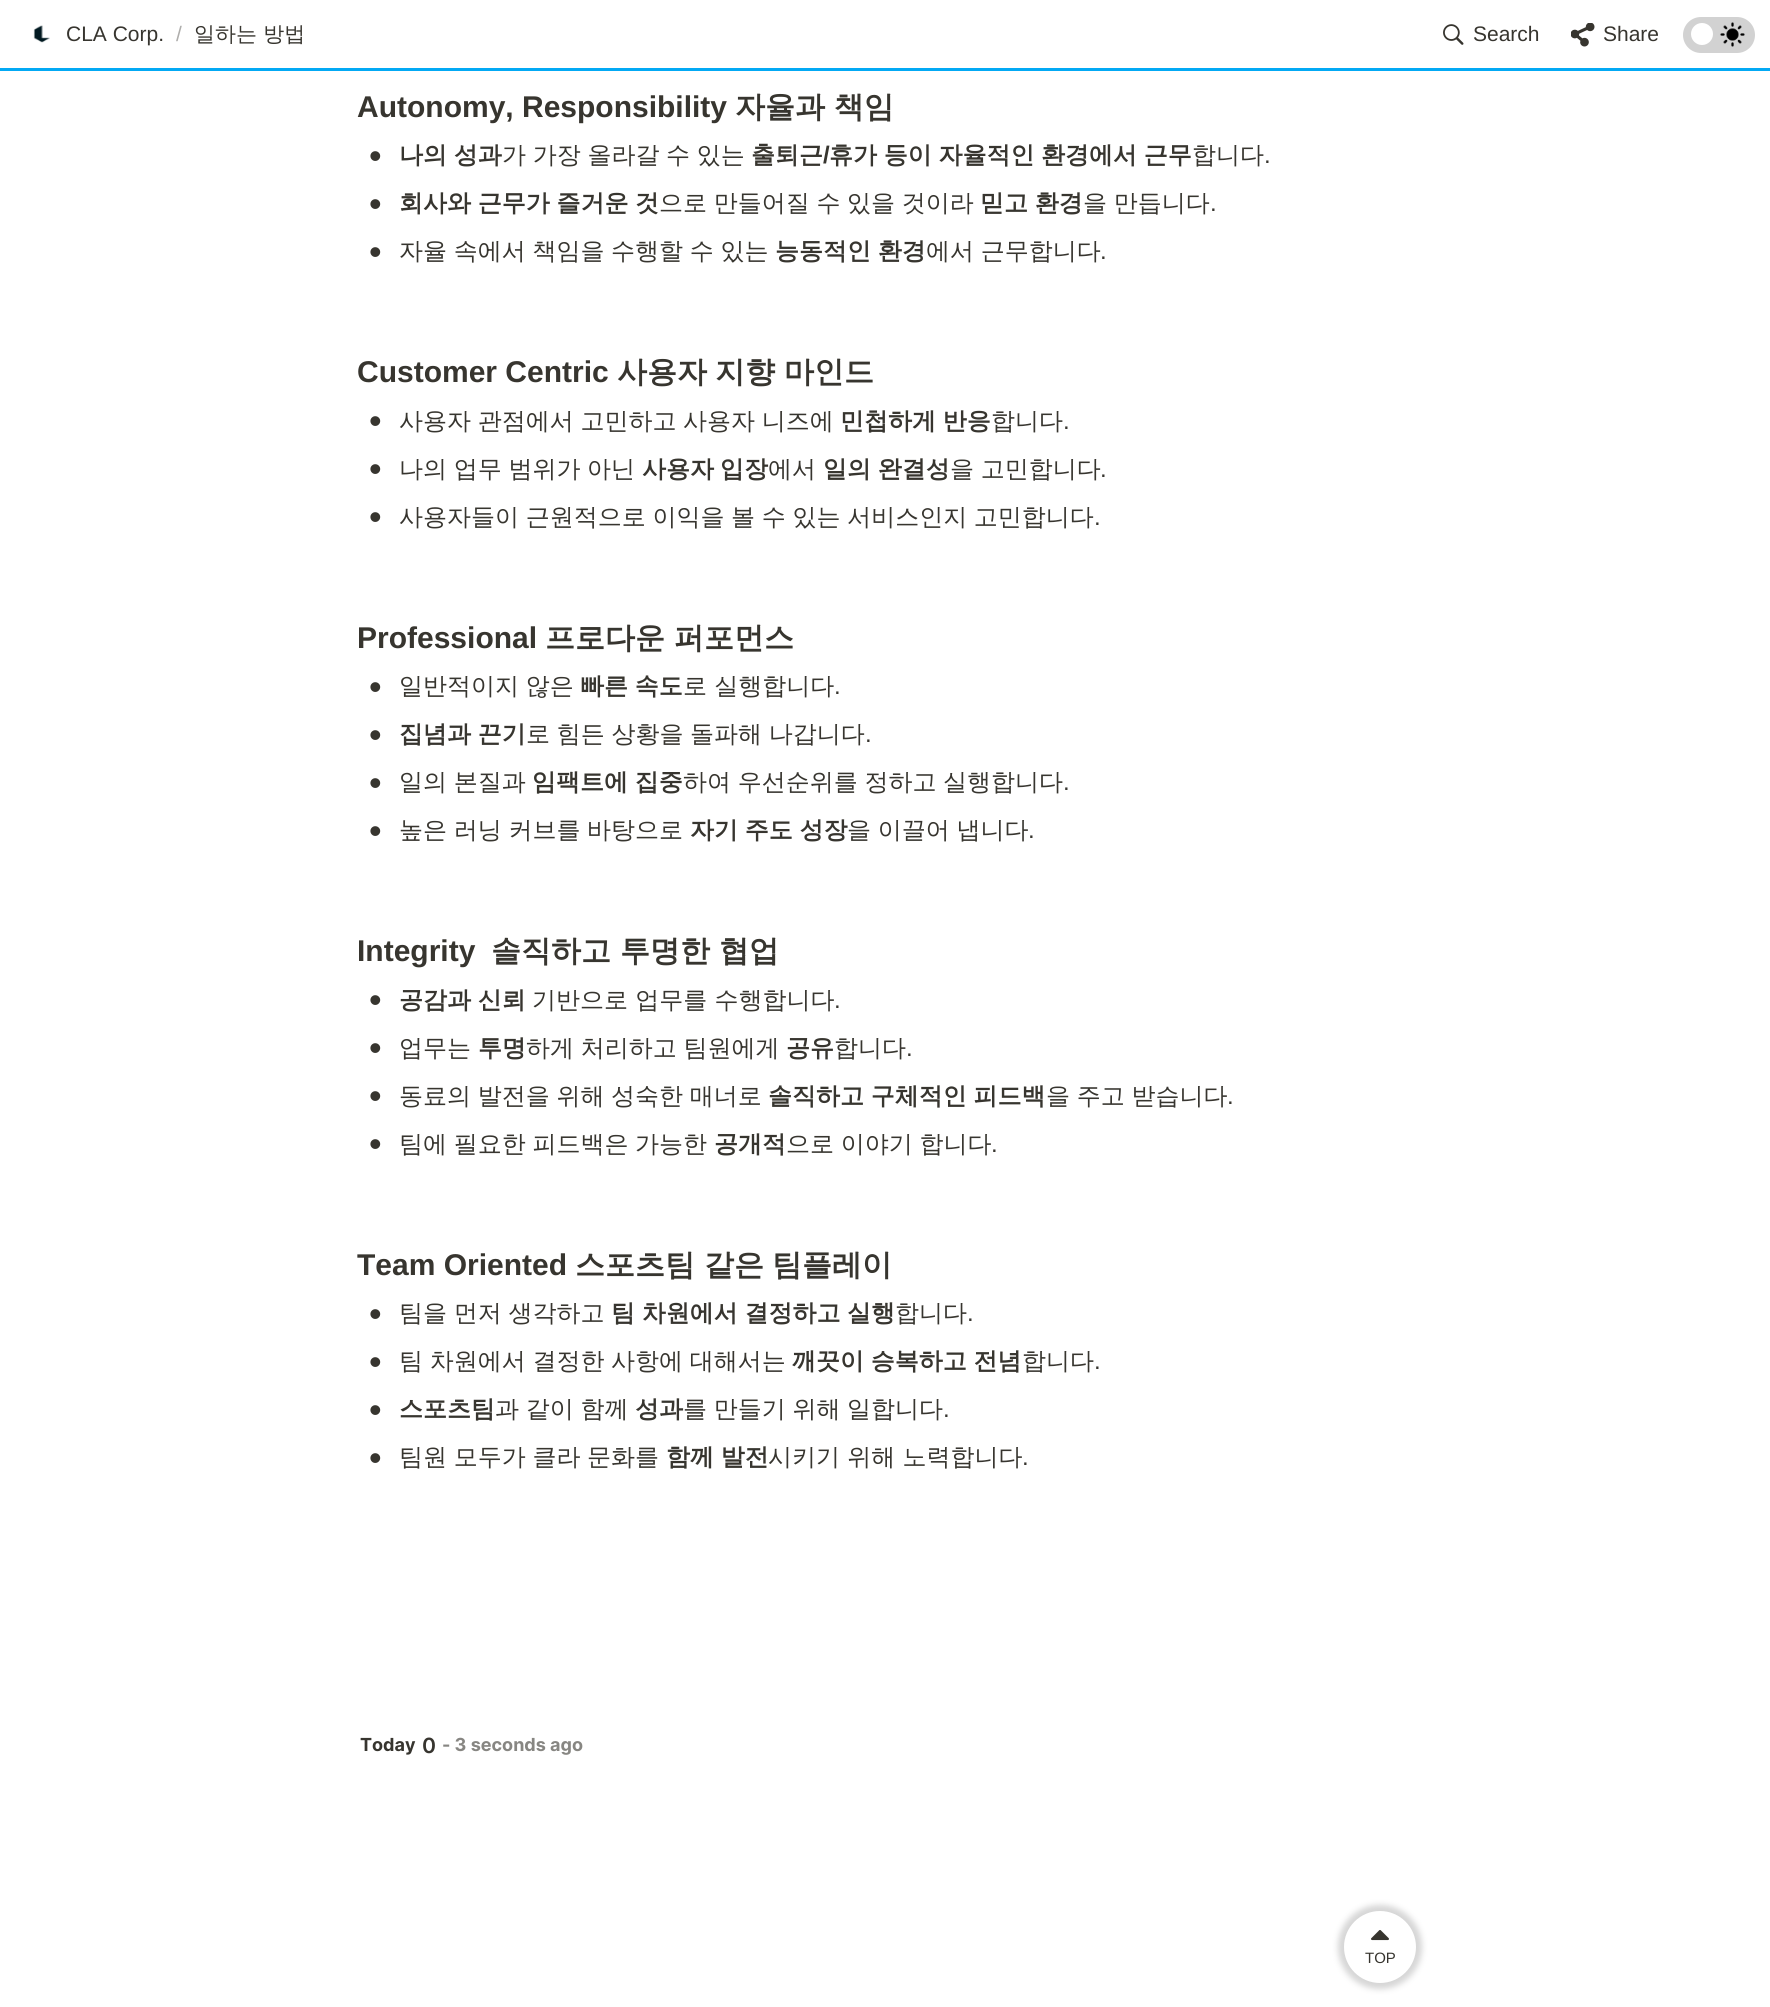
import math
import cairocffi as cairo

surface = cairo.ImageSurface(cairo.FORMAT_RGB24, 1770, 2007)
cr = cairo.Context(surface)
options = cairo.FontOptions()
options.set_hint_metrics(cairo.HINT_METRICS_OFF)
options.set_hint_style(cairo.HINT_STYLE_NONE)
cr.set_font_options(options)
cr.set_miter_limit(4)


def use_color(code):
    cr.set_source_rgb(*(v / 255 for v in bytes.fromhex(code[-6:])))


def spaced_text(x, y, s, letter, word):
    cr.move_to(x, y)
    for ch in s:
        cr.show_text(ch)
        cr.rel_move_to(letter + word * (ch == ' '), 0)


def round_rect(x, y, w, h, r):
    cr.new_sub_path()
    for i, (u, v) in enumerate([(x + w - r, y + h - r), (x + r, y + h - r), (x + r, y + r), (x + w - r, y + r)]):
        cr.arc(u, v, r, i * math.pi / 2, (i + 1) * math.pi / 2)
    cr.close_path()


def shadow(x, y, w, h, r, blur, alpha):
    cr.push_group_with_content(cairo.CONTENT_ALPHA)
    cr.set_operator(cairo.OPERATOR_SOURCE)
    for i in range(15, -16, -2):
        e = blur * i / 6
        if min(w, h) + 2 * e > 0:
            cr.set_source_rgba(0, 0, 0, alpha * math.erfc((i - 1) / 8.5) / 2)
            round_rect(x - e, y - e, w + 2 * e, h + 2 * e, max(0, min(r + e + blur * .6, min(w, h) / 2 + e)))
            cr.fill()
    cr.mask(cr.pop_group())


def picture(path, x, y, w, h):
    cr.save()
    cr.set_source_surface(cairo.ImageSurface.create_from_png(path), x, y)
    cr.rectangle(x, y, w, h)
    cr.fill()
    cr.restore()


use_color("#ffffff")
cr.paint()
picture("img1.png", 33, 25, 17, 18)
cr.select_font_face("Liberation Sans")
cr.set_font_size(21)
use_color("#37352f")
cr.move_to(66, 41)
cr.show_text("CLA Corp.")
use_color("#afaeac")
cr.move_to(176, 41)
cr.show_text("/")
cr.select_font_face("WenQuanYi Zen Hei Medium")
use_color("#37352f")
cr.move_to(194, 41)
cr.show_text("일하는 방법")
picture("img2.png", 1443, 24, 21, 21)
cr.select_font_face("Liberation Sans")
cr.move_to(1473, 41)
cr.show_text("Search")
picture("img3.png", 1571, 23, 24, 24)
cr.move_to(1603, 41)
cr.show_text("Share")
use_color("#d2d2d2")
round_rect(1683, 17, 72, 36, 18)
cr.fill()
picture("img4.png", 1720, 22, 25, 25)
use_color("#ffffff")
cr.arc(1702, 34, 11, 0, 2 * math.pi)
cr.fill()
use_color("#03a9f4")
cr.rectangle(0, 68, 1770, 3)
cr.fill()
cr.select_font_face("Liberation Sans", cairo.FONT_SLANT_NORMAL, cairo.FONT_WEIGHT_BOLD)
cr.set_font_size(30)
use_color("#37352f")
cr.move_to(357, 117)
cr.show_text("Autonomy, Responsibility")
cr.select_font_face("WenQuanYi Zen Hei", cairo.FONT_SLANT_NORMAL, cairo.FONT_WEIGHT_BOLD)
cr.move_to(735, 117)
cr.show_text("자율과")
cr.move_to(834, 117)
cr.show_text("책임")
cr.select_font_face("Liberation Sans")
cr.set_font_size(36)
cr.move_to(369, 168)
cr.show_text("•")
cr.select_font_face("WenQuanYi Zen Hei", cairo.FONT_SLANT_NORMAL, cairo.FONT_WEIGHT_BOLD)
cr.set_font_size(24)
spaced_text(399, 163, "나의 성과", 0, -0.5)
cr.select_font_face("WenQuanYi Zen Hei Medium")
spaced_text(502, 163, "가 가장 올라갈 수 있는", 0, -0.5)
cr.select_font_face("WenQuanYi Zen Hei", cairo.FONT_SLANT_NORMAL, cairo.FONT_WEIGHT_BOLD)
cr.move_to(751, 163)
cr.show_text("출퇴근")
cr.select_font_face("Liberation Sans", cairo.FONT_SLANT_NORMAL, cairo.FONT_WEIGHT_BOLD)
cr.move_to(823, 163)
cr.show_text("/")
cr.select_font_face("WenQuanYi Zen Hei", cairo.FONT_SLANT_NORMAL, cairo.FONT_WEIGHT_BOLD)
spaced_text(829, 163, "휴가 등이 자율적인 환경에서 근무", 0, -0.5)
cr.select_font_face("WenQuanYi Zen Hei Medium")
cr.move_to(1192, 163)
cr.show_text("합니다")
cr.select_font_face("Liberation Sans")
cr.move_to(1264, 163)
cr.show_text(".")
cr.set_font_size(36)
cr.move_to(369, 216)
cr.show_text("•")
cr.select_font_face("WenQuanYi Zen Hei", cairo.FONT_SLANT_NORMAL, cairo.FONT_WEIGHT_BOLD)
cr.set_font_size(24)
spaced_text(399, 211, "회사와 근무가 즐거운 것", 0, -0.5)
cr.select_font_face("WenQuanYi Zen Hei Medium")
spaced_text(659, 211, "으로 만들어질 수 있을 것이라", 0, -0.5)
cr.select_font_face("WenQuanYi Zen Hei", cairo.FONT_SLANT_NORMAL, cairo.FONT_WEIGHT_BOLD)
spaced_text(980, 211, "믿고 환경", 0, -0.5)
cr.select_font_face("WenQuanYi Zen Hei Medium")
spaced_text(1083, 211, "을 만듭니다", 0, -0.5)
cr.select_font_face("Liberation Sans")
cr.move_to(1210, 211)
cr.show_text(".")
cr.set_font_size(36)
cr.move_to(369, 264)
cr.show_text("•")
cr.select_font_face("WenQuanYi Zen Hei Medium")
cr.set_font_size(24)
spaced_text(399, 259, "자율 속에서 책임을 수행할 수 있는", 0, -0.5)
cr.select_font_face("WenQuanYi Zen Hei", cairo.FONT_SLANT_NORMAL, cairo.FONT_WEIGHT_BOLD)
spaced_text(775, 259, "능동적인 환경", 0, -0.5)
cr.select_font_face("WenQuanYi Zen Hei Medium")
spaced_text(926, 259, "에서 근무합니다", 0, -0.5)
cr.select_font_face("Liberation Sans")
cr.move_to(1100, 259)
cr.show_text(".")
cr.select_font_face("Liberation Sans", cairo.FONT_SLANT_NORMAL, cairo.FONT_WEIGHT_BOLD)
cr.set_font_size(30)
cr.move_to(357, 382)
cr.show_text("Customer Centric")
cr.select_font_face("WenQuanYi Zen Hei", cairo.FONT_SLANT_NORMAL, cairo.FONT_WEIGHT_BOLD)
cr.move_to(617, 382)
cr.show_text("사용자")
cr.move_to(715, 382)
cr.show_text("지향")
cr.move_to(784, 382)
cr.show_text("마인드")
cr.select_font_face("Liberation Sans")
cr.set_font_size(36)
cr.move_to(369, 433)
cr.show_text("•")
cr.select_font_face("WenQuanYi Zen Hei Medium")
cr.set_font_size(24)
spaced_text(399, 429, "사용자 관점에서 고민하고 사용자 니즈에", 0, -0.5)
cr.select_font_face("WenQuanYi Zen Hei", cairo.FONT_SLANT_NORMAL, cairo.FONT_WEIGHT_BOLD)
spaced_text(840, 429, "민첩하게 반응", 0, -0.5)
cr.select_font_face("WenQuanYi Zen Hei Medium")
cr.move_to(991, 429)
cr.show_text("합니다")
cr.select_font_face("Liberation Sans")
cr.move_to(1063, 429)
cr.show_text(".")
cr.set_font_size(36)
cr.move_to(369, 481)
cr.show_text("•")
cr.select_font_face("WenQuanYi Zen Hei Medium")
cr.set_font_size(24)
spaced_text(399, 477, "나의 업무 범위가 아닌", 0, -0.5)
cr.select_font_face("WenQuanYi Zen Hei", cairo.FONT_SLANT_NORMAL, cairo.FONT_WEIGHT_BOLD)
cr.move_to(642, 477)
cr.show_text("사용자")
cr.move_to(720, 477)
cr.show_text("입장")
cr.select_font_face("WenQuanYi Zen Hei Medium")
cr.move_to(768, 477)
cr.show_text("에서")
cr.select_font_face("WenQuanYi Zen Hei", cairo.FONT_SLANT_NORMAL, cairo.FONT_WEIGHT_BOLD)
spaced_text(823, 477, "일의 완결성", 0, -0.5)
cr.select_font_face("WenQuanYi Zen Hei Medium")
spaced_text(950, 477, "을 고민합니다", 0, -0.5)
cr.select_font_face("Liberation Sans")
cr.move_to(1100, 477)
cr.show_text(".")
cr.set_font_size(36)
cr.move_to(369, 529)
cr.show_text("•")
cr.select_font_face("WenQuanYi Zen Hei Medium")
cr.set_font_size(24)
spaced_text(399, 525, "사용자들이 근원적으로 이익을 볼 수 있는 서비스인지 고민합니다", 0, -0.5)
cr.select_font_face("Liberation Sans")
cr.move_to(1094, 525)
cr.show_text(".")
cr.select_font_face("Liberation Sans", cairo.FONT_SLANT_NORMAL, cairo.FONT_WEIGHT_BOLD)
cr.set_font_size(30)
cr.move_to(357, 648)
cr.show_text("Professional")
cr.select_font_face("WenQuanYi Zen Hei", cairo.FONT_SLANT_NORMAL, cairo.FONT_WEIGHT_BOLD)
cr.move_to(545, 648)
cr.show_text("프로다운 퍼포먼스")
cr.select_font_face("Liberation Sans")
cr.set_font_size(36)
cr.move_to(369, 699)
cr.show_text("•")
cr.select_font_face("WenQuanYi Zen Hei Medium")
cr.set_font_size(24)
spaced_text(399, 694, "일반적이지 않은", 0, -0.5)
cr.select_font_face("WenQuanYi Zen Hei", cairo.FONT_SLANT_NORMAL, cairo.FONT_WEIGHT_BOLD)
spaced_text(580, 694, "빠른 속도", 0, -0.5)
cr.select_font_face("WenQuanYi Zen Hei Medium")
cr.move_to(683, 694)
cr.show_text("로 실행합니다")
cr.select_font_face("Liberation Sans")
cr.move_to(834, 694)
cr.show_text(".")
cr.set_font_size(36)
cr.move_to(369, 747)
cr.show_text("•")
cr.select_font_face("WenQuanYi Zen Hei", cairo.FONT_SLANT_NORMAL, cairo.FONT_WEIGHT_BOLD)
cr.set_font_size(24)
spaced_text(399, 742, "집념과 끈기", 0, -0.5)
cr.select_font_face("WenQuanYi Zen Hei Medium")
spaced_text(526, 742, "로 힘든 상황을 돌파해 나갑니다", 0, -0.5)
cr.select_font_face("Liberation Sans")
cr.move_to(865, 742)
cr.show_text(".")
cr.set_font_size(36)
cr.move_to(369, 795)
cr.show_text("•")
cr.select_font_face("WenQuanYi Zen Hei Medium")
cr.set_font_size(24)
spaced_text(399, 790, "일의 본질과", 0, -0.5)
cr.select_font_face("WenQuanYi Zen Hei", cairo.FONT_SLANT_NORMAL, cairo.FONT_WEIGHT_BOLD)
spaced_text(532, 790, "임팩트에 집중", 0, -0.5)
cr.select_font_face("WenQuanYi Zen Hei Medium")
spaced_text(683, 790, "하여 우선순위를 정하고 실행합니다", 0, -0.5)
cr.select_font_face("Liberation Sans")
cr.move_to(1063, 790)
cr.show_text(".")
cr.set_font_size(36)
cr.move_to(369, 843)
cr.show_text("•")
cr.select_font_face("WenQuanYi Zen Hei Medium")
cr.set_font_size(24)
spaced_text(399, 838, "높은 러닝 커브를 바탕으로", 0, -0.5)
cr.select_font_face("WenQuanYi Zen Hei", cairo.FONT_SLANT_NORMAL, cairo.FONT_WEIGHT_BOLD)
spaced_text(690, 838, "자기 주도 성장", 0, -0.5)
cr.select_font_face("WenQuanYi Zen Hei Medium")
spaced_text(847, 838, "을 이끌어 냅니다", 0, -0.5)
cr.select_font_face("Liberation Sans")
cr.move_to(1028, 838)
cr.show_text(".")
cr.select_font_face("Liberation Sans", cairo.FONT_SLANT_NORMAL, cairo.FONT_WEIGHT_BOLD)
cr.set_font_size(30)
cr.move_to(357, 961)
cr.show_text("Integrity")
cr.select_font_face("WenQuanYi Zen Hei", cairo.FONT_SLANT_NORMAL, cairo.FONT_WEIGHT_BOLD)
cr.move_to(491, 961)
cr.show_text("솔직하고 투명한 협업")
cr.select_font_face("Liberation Sans")
cr.set_font_size(36)
cr.move_to(369, 1012)
cr.show_text("•")
cr.select_font_face("WenQuanYi Zen Hei", cairo.FONT_SLANT_NORMAL, cairo.FONT_WEIGHT_BOLD)
cr.set_font_size(24)
spaced_text(399, 1008, "공감과 신뢰", 0, -0.5)
cr.select_font_face("WenQuanYi Zen Hei Medium")
cr.move_to(532, 1008)
cr.show_text("기반으로 업무를 수행합니다")
cr.select_font_face("Liberation Sans")
cr.move_to(834, 1008)
cr.show_text(".")
cr.set_font_size(36)
cr.move_to(369, 1060)
cr.show_text("•")
cr.select_font_face("WenQuanYi Zen Hei Medium")
cr.set_font_size(24)
cr.move_to(399, 1056)
cr.show_text("업무는")
cr.select_font_face("WenQuanYi Zen Hei", cairo.FONT_SLANT_NORMAL, cairo.FONT_WEIGHT_BOLD)
cr.move_to(478, 1056)
cr.show_text("투명")
cr.select_font_face("WenQuanYi Zen Hei Medium")
spaced_text(526, 1056, "하게 처리하고 팀원에게", 0, -0.5)
cr.select_font_face("WenQuanYi Zen Hei", cairo.FONT_SLANT_NORMAL, cairo.FONT_WEIGHT_BOLD)
cr.move_to(786, 1056)
cr.show_text("공유")
cr.select_font_face("WenQuanYi Zen Hei Medium")
cr.move_to(834, 1056)
cr.show_text("합니다")
cr.select_font_face("Liberation Sans")
cr.move_to(906, 1056)
cr.show_text(".")
cr.set_font_size(36)
cr.move_to(369, 1108)
cr.show_text("•")
cr.select_font_face("WenQuanYi Zen Hei Medium")
cr.set_font_size(24)
spaced_text(399, 1104, "동료의 발전을 위해 성숙한 매너로", 0, -0.5)
cr.select_font_face("WenQuanYi Zen Hei", cairo.FONT_SLANT_NORMAL, cairo.FONT_WEIGHT_BOLD)
spaced_text(768, 1104, "솔직하고 구체적인 피드백", 0, -0.5)
cr.select_font_face("WenQuanYi Zen Hei Medium")
spaced_text(1046, 1104, "을 주고 받습니다", 0, -0.5)
cr.select_font_face("Liberation Sans")
cr.move_to(1227, 1104)
cr.show_text(".")
cr.set_font_size(36)
cr.move_to(369, 1156)
cr.show_text("•")
cr.select_font_face("WenQuanYi Zen Hei Medium")
cr.set_font_size(24)
spaced_text(399, 1152, "팀에 필요한 피드백은 가능한", 0, -0.5)
cr.select_font_face("WenQuanYi Zen Hei", cairo.FONT_SLANT_NORMAL, cairo.FONT_WEIGHT_BOLD)
cr.move_to(714, 1152)
cr.show_text("공개적")
cr.select_font_face("WenQuanYi Zen Hei Medium")
spaced_text(786, 1152, "으로 이야기 합니다", 0, -0.5)
cr.select_font_face("Liberation Sans")
cr.move_to(991, 1152)
cr.show_text(".")
cr.select_font_face("Liberation Sans", cairo.FONT_SLANT_NORMAL, cairo.FONT_WEIGHT_BOLD)
cr.set_font_size(30)
cr.move_to(357, 1275)
cr.show_text("Team Oriented")
cr.select_font_face("WenQuanYi Zen Hei", cairo.FONT_SLANT_NORMAL, cairo.FONT_WEIGHT_BOLD)
cr.move_to(575, 1275)
cr.show_text("스포츠팀")
cr.move_to(704, 1275)
cr.show_text("같은")
cr.move_to(772, 1275)
cr.show_text("팀플레이")
cr.select_font_face("Liberation Sans")
cr.set_font_size(36)
cr.move_to(369, 1326)
cr.show_text("•")
cr.select_font_face("WenQuanYi Zen Hei Medium")
cr.set_font_size(24)
spaced_text(399, 1321, "팀을 먼저 생각하고", 0, -0.5)
cr.select_font_face("WenQuanYi Zen Hei", cairo.FONT_SLANT_NORMAL, cairo.FONT_WEIGHT_BOLD)
spaced_text(611, 1321, "팀 차원에서 결정하고 실행", 0, -0.5)
cr.select_font_face("WenQuanYi Zen Hei Medium")
cr.move_to(895, 1321)
cr.show_text("합니다")
cr.select_font_face("Liberation Sans")
cr.move_to(967, 1321)
cr.show_text(".")
cr.set_font_size(36)
cr.move_to(369, 1374)
cr.show_text("•")
cr.select_font_face("WenQuanYi Zen Hei Medium")
cr.set_font_size(24)
spaced_text(399, 1369, "팀 차원에서 결정한 사항에 대해서는", 0, -0.5)
cr.select_font_face("WenQuanYi Zen Hei", cairo.FONT_SLANT_NORMAL, cairo.FONT_WEIGHT_BOLD)
spaced_text(792, 1369, "깨끗이 승복하고 전념", 0, -0.5)
cr.select_font_face("WenQuanYi Zen Hei Medium")
cr.move_to(1022, 1369)
cr.show_text("합니다")
cr.select_font_face("Liberation Sans")
cr.move_to(1094, 1369)
cr.show_text(".")
cr.set_font_size(36)
cr.move_to(369, 1422)
cr.show_text("•")
cr.select_font_face("WenQuanYi Zen Hei", cairo.FONT_SLANT_NORMAL, cairo.FONT_WEIGHT_BOLD)
cr.set_font_size(24)
cr.move_to(399, 1417)
cr.show_text("스포츠팀")
cr.select_font_face("WenQuanYi Zen Hei Medium")
spaced_text(495, 1417, "과 같이 함께", 0, -0.5)
cr.select_font_face("WenQuanYi Zen Hei", cairo.FONT_SLANT_NORMAL, cairo.FONT_WEIGHT_BOLD)
cr.move_to(635, 1417)
cr.show_text("성과")
cr.select_font_face("WenQuanYi Zen Hei Medium")
spaced_text(683, 1417, "를 만들기 위해 일합니다", 0, -0.5)
cr.select_font_face("Liberation Sans")
cr.move_to(943, 1417)
cr.show_text(".")
cr.set_font_size(36)
cr.move_to(369, 1470)
cr.show_text("•")
cr.select_font_face("WenQuanYi Zen Hei Medium")
cr.set_font_size(24)
spaced_text(399, 1465, "팀원 모두가 클라 문화를", 0, -0.5)
cr.select_font_face("WenQuanYi Zen Hei", cairo.FONT_SLANT_NORMAL, cairo.FONT_WEIGHT_BOLD)
spaced_text(666, 1465, "함께 발전", 0, -0.5)
cr.select_font_face("WenQuanYi Zen Hei Medium")
cr.move_to(768, 1465)
cr.show_text("시키기 위해 노력합니다")
cr.select_font_face("Liberation Sans")
cr.move_to(1022, 1465)
cr.show_text(".")
cr.select_font_face("Inter", cairo.FONT_SLANT_NORMAL, cairo.FONT_WEIGHT_BOLD)
cr.set_font_size(18)
cr.move_to(360, 1751)
cr.show_text("Today")
cr.select_font_face("Inter SemiBold")
cr.set_font_size(21)
cr.move_to(422, 1753)
cr.show_text("0")
cr.select_font_face("Inter", cairo.FONT_SLANT_NORMAL, cairo.FONT_WEIGHT_BOLD)
cr.set_font_size(18)
use_color("#878682")
cr.move_to(442, 1751)
cr.show_text("- 3 seconds ago")
use_color("#d6d6d6")
shadow(1338, 1905, 84, 84, 42, 3, 1)
use_color("#ffffff")
cr.arc(1380, 1947, 36, 0, 2 * math.pi)
cr.fill()
picture("img5.png", 1371, 1930, 18, 11)
cr.select_font_face("Liberation Sans")
cr.set_font_size(15)
use_color("#37352f")
cr.move_to(1365, 1963)
cr.show_text("TOP")
surface.write_to_png("result.png")
